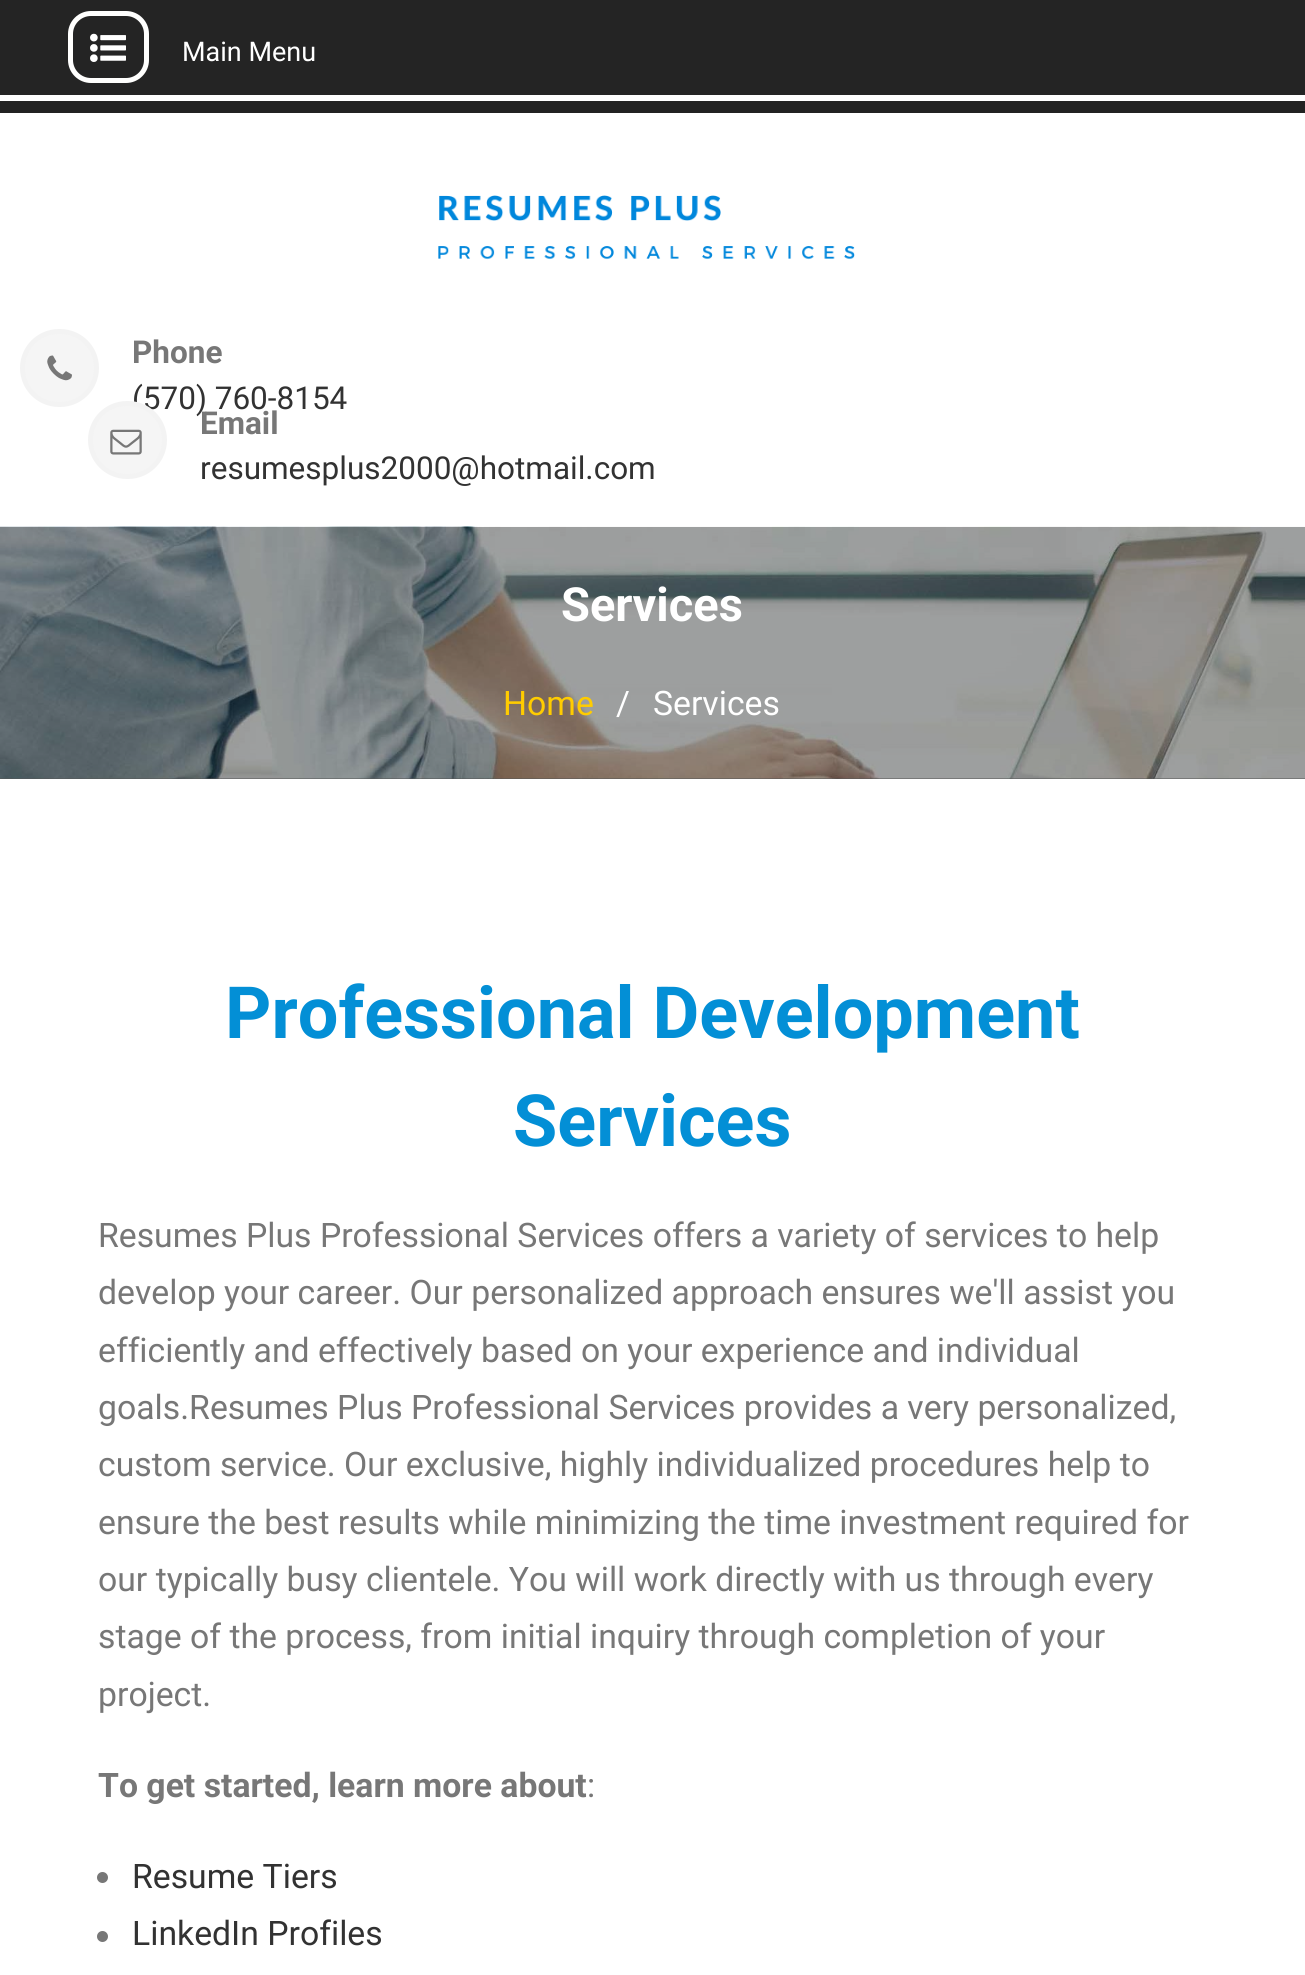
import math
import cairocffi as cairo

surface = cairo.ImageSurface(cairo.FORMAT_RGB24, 1305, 1975)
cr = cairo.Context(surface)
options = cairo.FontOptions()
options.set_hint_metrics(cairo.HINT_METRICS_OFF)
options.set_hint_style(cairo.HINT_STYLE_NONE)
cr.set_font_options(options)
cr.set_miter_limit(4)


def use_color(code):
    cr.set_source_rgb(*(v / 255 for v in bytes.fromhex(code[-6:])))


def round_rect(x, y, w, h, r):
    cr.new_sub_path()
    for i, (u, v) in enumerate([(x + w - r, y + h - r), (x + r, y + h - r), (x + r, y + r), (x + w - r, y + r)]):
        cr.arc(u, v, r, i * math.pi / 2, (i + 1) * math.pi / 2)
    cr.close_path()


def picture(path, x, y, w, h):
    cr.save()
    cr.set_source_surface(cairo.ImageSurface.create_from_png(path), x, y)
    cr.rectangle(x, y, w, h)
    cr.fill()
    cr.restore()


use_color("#ffffff")
cr.paint()
use_color("#242424")
cr.rectangle(0, 0, 1305, 95)
cr.fill()
round_rect(70.5, 13.5, 76, 67, 20.5)
use_color("#fffffe")
cr.set_line_width(5)
cr.stroke()
picture("img1.png", 90, 33, 36, 29)
cr.select_font_face("Roboto")
cr.set_font_size(27)
use_color("#ffffff")
cr.move_to(182, 61)
cr.show_text("Main Menu")
use_color("#222222")
cr.rectangle(0, 101, 1305, 12)
cr.fill()
picture("img2.png", 438, 195, 417, 65)
use_color("#f5f5f5")
round_rect(22.5, 331.5, 74, 73, 36.5)
cr.fill_preserve()
use_color("#f3f3f3")
cr.stroke()
picture("img3.png", 47, 355, 25, 26)
cr.select_font_face("Roboto", cairo.FONT_SLANT_NORMAL, cairo.FONT_WEIGHT_BOLD)
cr.set_font_size(31.5)
use_color("#777777")
cr.move_to(132, 363)
cr.show_text("Phone")
cr.select_font_face("Roboto")
use_color("#323232")
cr.move_to(132, 409)
cr.show_text("(570) 760-8154")
use_color("#f5f5f5")
round_rect(90.5, 403.5, 74, 73, 36.5)
cr.fill_preserve()
use_color("#f3f3f3")
cr.stroke()
picture("img4.png", 110, 429, 32, 26)
cr.select_font_face("Roboto", cairo.FONT_SLANT_NORMAL, cairo.FONT_WEIGHT_BOLD)
use_color("#777777")
cr.move_to(200, 434)
cr.show_text("Email")
cr.select_font_face("Roboto")
use_color("#323232")
cr.move_to(200, 479)
cr.show_text("resumesplus2000@hotmail.com")
use_color("#555656")
cr.rectangle(0, 778, 1305, 1)
cr.fill()
picture("img5.png", 0, 526, 1305, 253)
cr.select_font_face("Roboto", cairo.FONT_SLANT_NORMAL, cairo.FONT_WEIGHT_BOLD)
cr.set_font_size(47)
use_color("#ffffff")
cr.move_to(561, 621)
cr.show_text("Services")
cr.select_font_face("Roboto")
cr.set_font_size(33.75)
use_color("#ffcc00")
cr.move_to(503, 715)
cr.show_text("Home")
use_color("#ffffff")
cr.move_to(616, 715)
cr.show_text("/")
cr.move_to(653, 715)
cr.show_text("Services")
cr.select_font_face("Roboto", cairo.FONT_SLANT_NORMAL, cairo.FONT_WEIGHT_BOLD)
cr.set_font_size(72)
use_color("#038fd6")
cr.move_to(225, 1038)
cr.show_text("Professional Development")
cr.move_to(513, 1146)
cr.show_text("Services")
cr.select_font_face("Roboto")
cr.set_font_size(33.75)
use_color("#777777")
cr.move_to(98, 1247)
cr.show_text("Resumes Plus Professional Services offers a variety of services to help")
cr.move_to(98, 1304)
cr.show_text("develop your career. Our personalized approach ensures we'll assist you")
cr.move_to(98, 1362)
cr.show_text("efficiently and effectively based on your experience and individual")
cr.move_to(98, 1419)
cr.show_text("goals.Resumes Plus Professional Services provides a very personalized,")
cr.move_to(98, 1476)
cr.show_text("custom service. Our exclusive, highly individualized procedures help to")
cr.move_to(98, 1534)
cr.show_text("ensure the best results while minimizing the time investment required for")
cr.move_to(98, 1591)
cr.show_text("our typically busy clientele. You will work directly with us through every")
cr.move_to(98, 1648)
cr.show_text("stage of the process, from initial inquiry through completion of your")
cr.move_to(98, 1706)
cr.show_text("project.")
cr.select_font_face("Roboto", cairo.FONT_SLANT_NORMAL, cairo.FONT_WEIGHT_BOLD)
cr.move_to(98, 1797)
cr.show_text("To get started, learn more about")
cr.select_font_face("Roboto")
cr.move_to(587, 1797)
cr.show_text(":")
cr.new_path()
cr.arc(102.5, 1877.5, 5.5, 0, 2 * math.pi)
cr.fill()
use_color("#323232")
cr.move_to(132, 1888)
cr.show_text("Resume Tiers")
use_color("#777777")
cr.new_path()
cr.arc(102.5, 1936.5, 5.5, 0, 2 * math.pi)
cr.fill()
use_color("#323232")
cr.move_to(132, 1945)
cr.show_text("LinkedIn Profiles")
surface.write_to_png("result.png")
